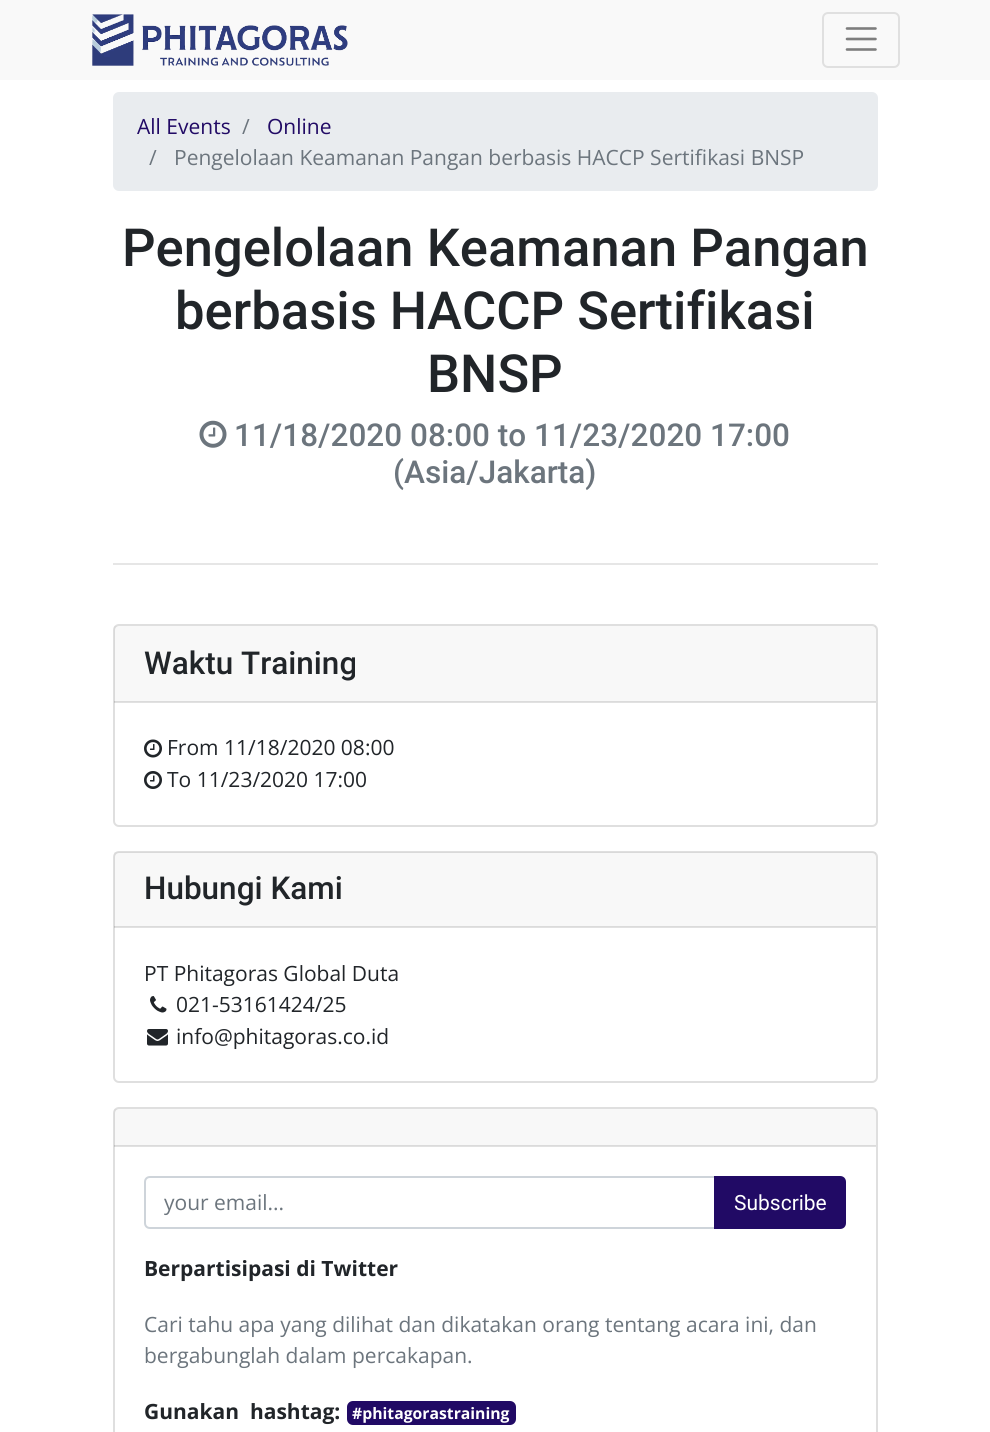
import math
import cairocffi as cairo

surface = cairo.ImageSurface(cairo.FORMAT_RGB24, 990, 1432)
cr = cairo.Context(surface)
options = cairo.FontOptions()
options.set_hint_metrics(cairo.HINT_METRICS_OFF)
options.set_hint_style(cairo.HINT_STYLE_NONE)
cr.set_font_options(options)
cr.set_miter_limit(4)


def use_color(code):
    cr.set_source_rgb(*(v / 255 for v in bytes.fromhex(code[-6:])))


def round_rect(x, y, w, h, r):
    cr.new_sub_path()
    for i, (u, v) in enumerate([(x + w - r, y + h - r), (x + r, y + h - r), (x + r, y + r), (x + w - r, y + r)]):
        cr.arc(u, v, r, i * math.pi / 2, (i + 1) * math.pi / 2)
    cr.close_path()


def picture(path, x, y, w, h):
    cr.save()
    cr.set_source_surface(cairo.ImageSurface.create_from_png(path), x, y)
    cr.rectangle(x, y, w, h)
    cr.fill()
    cr.restore()


use_color("#ffffff")
cr.paint()
use_color("#f9f9f9")
cr.rectangle(0, 0, 990, 80)
cr.fill()
picture("img1.png", 92, 14, 256, 52)
round_rect(823, 13, 76, 54, 5)
use_color("#e0e0e0")
cr.stroke()
cr.new_path()
cr.move_to(847, 28.5)
cr.line_to(875.5, 28.5)
cr.move_to(847, 39)
cr.line_to(875.5, 39)
cr.move_to(847, 49.5)
cr.line_to(875.5, 49.5)
use_color("#7d7d7d")
cr.set_line_width(2.6)
cr.set_line_cap(cairo.LINE_CAP_ROUND)
cr.stroke()
use_color("#e9ecef")
round_rect(113, 92, 765, 99, 6)
cr.fill()
cr.select_font_face("Open Sans")
cr.set_font_size(21)
use_color("#210a65")
cr.move_to(137, 134)
cr.show_text("All Events")
use_color("#6c757d")
cr.move_to(242, 134)
cr.show_text("/")
use_color("#210a65")
cr.move_to(267, 134)
cr.show_text("Online")
use_color("#6c757d")
cr.move_to(149, 165)
cr.show_text("/")
cr.move_to(174, 165)
cr.show_text("Pengelolaan Keamanan Pangan berbasis HACCP Sertifikasi BNSP")
cr.select_font_face("Roboto Medium")
cr.set_font_size(52.5)
use_color("#212529")
cr.move_to(122, 266)
cr.show_text("Pengelolaan Keamanan Pangan")
cr.move_to(175, 329)
cr.show_text("berbasis HACCP Sertifikasi")
cr.move_to(427, 392)
cr.show_text("BNSP")
picture("img2.png", 199, 420, 28, 28)
cr.set_font_size(31.5)
use_color("#6c757d")
cr.move_to(234, 446)
cr.show_text("11/18/2020 08:00 to 11/23/2020 17:00")
cr.move_to(393, 483)
cr.show_text("(Asia/Jakarta)")
use_color("#e6e6e6")
cr.rectangle(113, 563, 765, 2)
cr.fill()
round_rect(114, 625, 763, 201, 5)
use_color("#dfdfdf")
cr.set_line_width(2)
cr.set_line_cap(cairo.LINE_CAP_BUTT)
cr.stroke()
cr.set_source_rgba(0, 0, 0, 0.03)
cr.rectangle(114, 626, 762, 76)
cr.fill()
cr.set_source_rgba(0, 0, 0, 0.12)
cr.rectangle(114, 701, 762, 2)
cr.fill()
use_color("#212529")
cr.move_to(144, 674)
cr.show_text("Waktu Training")
picture("img3.png", 144, 739, 18, 19)
cr.select_font_face("Open Sans")
cr.set_font_size(21)
cr.move_to(167, 755)
cr.show_text("From 11/18/2020 08:00")
picture("img4.png", 144, 771, 18, 18)
cr.move_to(167, 787)
cr.show_text("To 11/23/2020 17:00")
round_rect(114, 852, 763, 230, 5)
use_color("#dfdfdf")
cr.stroke()
cr.set_source_rgba(0, 0, 0, 0.03)
cr.rectangle(114, 852, 762, 75)
cr.fill()
cr.set_source_rgba(0, 0, 0, 0.12)
cr.rectangle(114, 926, 762, 2)
cr.fill()
cr.select_font_face("Roboto Medium")
cr.set_font_size(31.5)
use_color("#212529")
cr.move_to(144, 899)
cr.show_text("Hubungi Kami")
cr.select_font_face("Open Sans")
cr.set_font_size(21)
cr.move_to(144, 981)
cr.show_text("PT Phitagoras Global Duta")
picture("img5.png", 150, 996, 17, 17)
cr.move_to(176, 1012)
cr.show_text("021-53161424/25")
picture("img6.png", 147, 1029, 21, 17)
cr.move_to(176, 1044)
cr.show_text("info@phitagoras.co.id")
round_rect(114, 1108, 763, 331, 5)
use_color("#dfdfdf")
cr.stroke()
cr.set_source_rgba(0, 0, 0, 0.03)
cr.rectangle(114, 1109, 762, 37)
cr.fill()
cr.set_source_rgba(0, 0, 0, 0.12)
cr.rectangle(114, 1145, 762, 2)
cr.fill()
cr.new_path()
cr.move_to(150, 1177)
cr.line_to(716, 1177)
cr.line_to(716, 1228)
cr.line_to(150, 1228)
cr.curve_to(147, 1228, 145, 1226, 145, 1223)
cr.line_to(145, 1182)
cr.curve_to(145, 1179, 147, 1177, 150, 1177)
cr.close_path()
use_color("#ced4da")
cr.stroke()
cr.save()
cr.rectangle(164, 1188, 534, 29)
cr.clip()
use_color("#6c757d")
cr.move_to(164, 1210)
cr.show_text("your email...")
cr.restore()
use_color("#210a65")
cr.new_path()
cr.move_to(715, 1177)
cr.line_to(840, 1177)
cr.curve_to(843, 1177, 845, 1179, 845, 1182)
cr.line_to(845, 1223)
cr.curve_to(845, 1226, 843, 1228, 840, 1228)
cr.line_to(715, 1228)
cr.close_path()
cr.fill_preserve()
cr.stroke()
cr.select_font_face("Roboto")
use_color("#ffffff")
cr.move_to(734, 1210)
cr.show_text("Subscribe")
cr.select_font_face("Open Sans", cairo.FONT_SLANT_NORMAL, cairo.FONT_WEIGHT_BOLD)
use_color("#212529")
cr.move_to(144, 1276)
cr.show_text("Berpartisipasi di Twitter")
cr.select_font_face("Open Sans")
use_color("#6c757d")
cr.move_to(144, 1332)
cr.show_text("Cari tahu apa yang dilihat dan dikatakan orang tentang acara ini, dan")
cr.move_to(144, 1363)
cr.show_text("bergabunglah dalam percakapan.")
cr.select_font_face("Open Sans", cairo.FONT_SLANT_NORMAL, cairo.FONT_WEIGHT_BOLD)
use_color("#212529")
cr.move_to(144, 1419)
cr.show_text("Gunakan  hashtag:")
use_color("#210a65")
round_rect(347, 1401, 169, 24, 6)
cr.fill()
cr.set_font_size(15.75)
use_color("#ffffff")
cr.move_to(352, 1419)
cr.show_text("#phitagorastraining")
surface.write_to_png("result.png")
